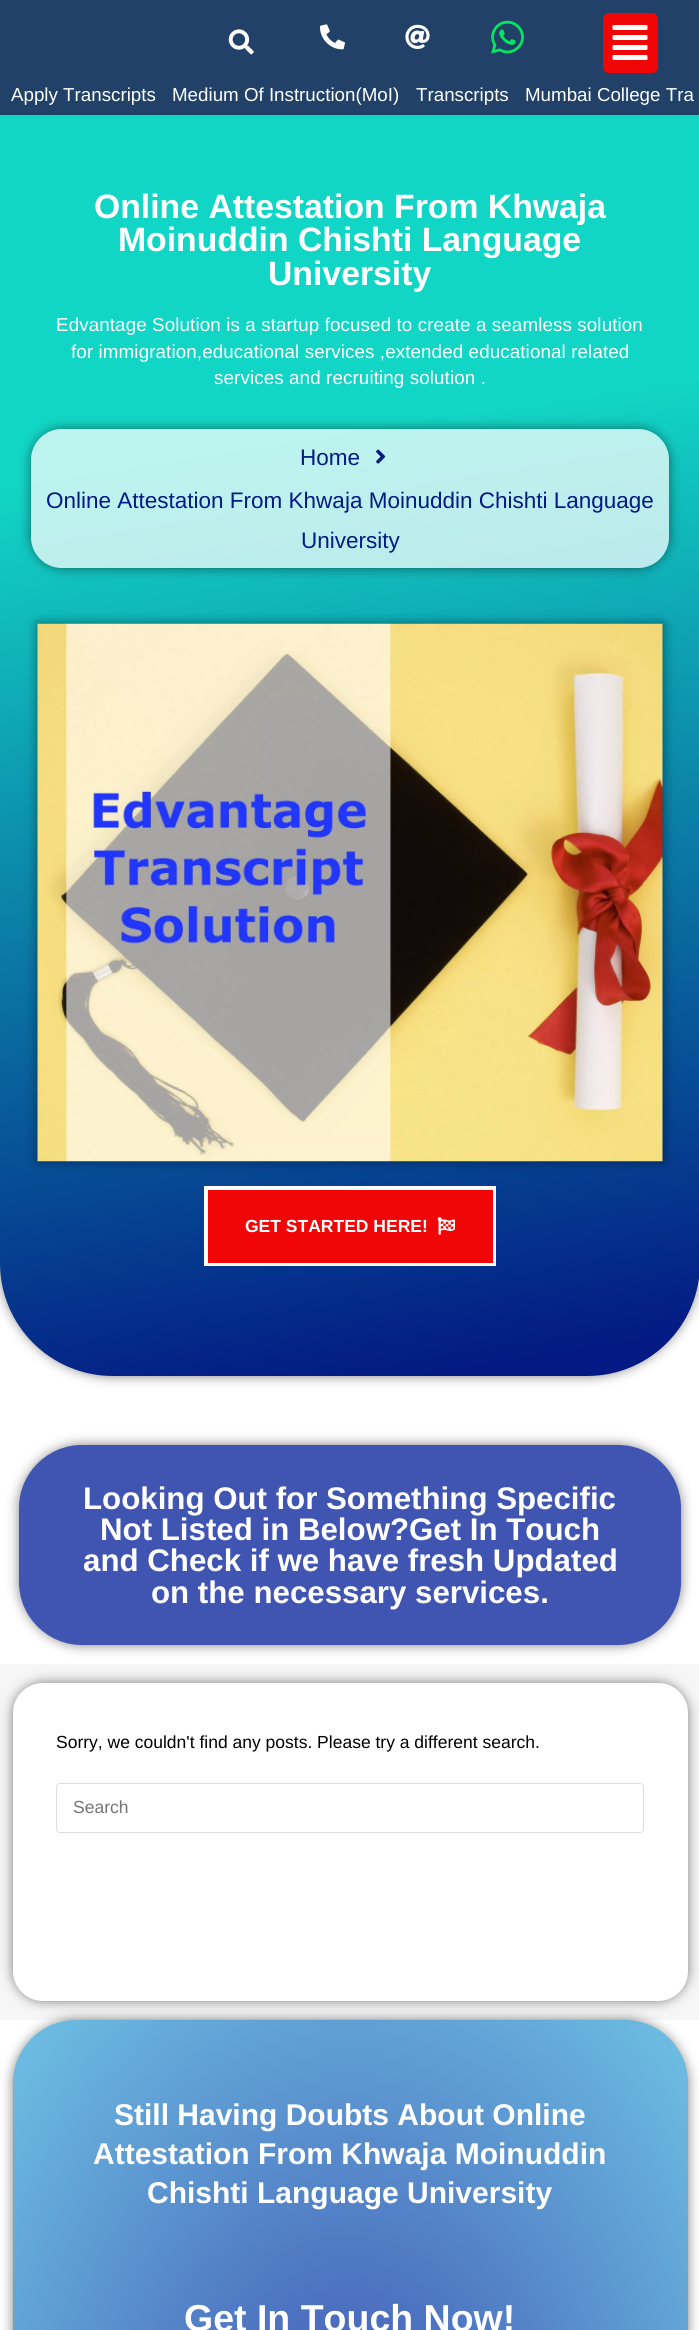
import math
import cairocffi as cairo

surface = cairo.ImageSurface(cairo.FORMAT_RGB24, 699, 2330)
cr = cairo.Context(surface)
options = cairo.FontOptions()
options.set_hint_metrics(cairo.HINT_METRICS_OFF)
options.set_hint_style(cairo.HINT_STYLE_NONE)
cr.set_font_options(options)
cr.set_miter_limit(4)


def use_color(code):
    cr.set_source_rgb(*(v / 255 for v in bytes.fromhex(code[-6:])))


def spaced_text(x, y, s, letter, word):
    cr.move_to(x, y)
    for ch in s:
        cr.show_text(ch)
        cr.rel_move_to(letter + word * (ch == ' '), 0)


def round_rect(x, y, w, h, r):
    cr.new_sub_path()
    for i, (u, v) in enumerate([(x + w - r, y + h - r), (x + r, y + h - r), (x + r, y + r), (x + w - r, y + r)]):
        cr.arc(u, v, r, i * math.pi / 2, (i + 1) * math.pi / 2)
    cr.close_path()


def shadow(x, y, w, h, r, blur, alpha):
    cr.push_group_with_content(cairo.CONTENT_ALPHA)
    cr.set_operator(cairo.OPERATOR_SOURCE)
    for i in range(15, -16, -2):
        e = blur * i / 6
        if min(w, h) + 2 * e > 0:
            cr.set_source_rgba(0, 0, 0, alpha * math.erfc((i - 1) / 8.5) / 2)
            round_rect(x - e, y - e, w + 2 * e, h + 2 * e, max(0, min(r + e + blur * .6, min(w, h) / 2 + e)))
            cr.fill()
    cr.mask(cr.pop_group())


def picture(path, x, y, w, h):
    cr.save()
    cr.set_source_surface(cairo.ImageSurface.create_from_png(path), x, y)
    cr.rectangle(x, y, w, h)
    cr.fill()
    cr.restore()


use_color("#ffffff")
cr.paint()
use_color("#000000")
shadow(0, 115, 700, 1261, 113, 6, 0.5)
use_color("#214168")
cr.rectangle(0, 0, 699, 115)
cr.fill()
picture("img1.png", 228, 29, 26, 26)
picture("img2.png", 320, 24, 25, 26)
picture("img3.png", 405, 24, 25, 25)
picture("img4.png", 491, 20, 33, 34)
use_color("#f00606")
round_rect(603, 13, 55, 60, 6)
cr.fill()
picture("img5.png", 612, 25, 36, 35)
cr.select_font_face("Liberation Sans")
cr.set_font_size(18.75)
use_color("#ffffff")
cr.move_to(11, 101)
cr.show_text("Apply Transcripts")
cr.move_to(172, 101)
cr.show_text("Medium Of Instruction(MoI)")
cr.move_to(416, 101)
cr.show_text("Transcripts")
cr.move_to(525, 101)
cr.show_text("Mumbai College Tra")
gradient = cairo.LinearGradient(456, 1415, 244, 76)
gradient.add_color_stop_rgba(0.03, 0.012, 0.098, 0.514, 1)
gradient.add_color_stop_rgba(0.73, 0.071, 0.839, 0.773, 1)
cr.set_source(gradient)
cr.new_path()
cr.move_to(0, 115)
cr.line_to(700, 115)
cr.line_to(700, 1263)
cr.curve_to(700, 1325.5, 649.5, 1376, 587, 1376)
cr.line_to(113, 1376)
cr.curve_to(50.5, 1376, 0, 1325.5, 0, 1263)
cr.close_path()
cr.fill()
cr.select_font_face("Liberation Sans", cairo.FONT_SLANT_NORMAL, cairo.FONT_WEIGHT_BOLD)
cr.set_font_size(33.75)
use_color("#ffffff")
cr.move_to(94, 218)
cr.show_text("Online Attestation From Khwaja")
cr.move_to(118, 251)
cr.show_text("Moinuddin Chishti Language")
cr.move_to(268, 285)
cr.show_text("University")
cr.select_font_face("Liberation Sans")
cr.set_font_size(18.75)
spaced_text(56, 331, "Edvantage Solution is a startup focused to create a seamless solution", 0.12, 0)
spaced_text(71, 358, "for immigration,educational services ,extended educational related", 0.12, 0)
spaced_text(214, 384, "services and recruiting solution .", 0.12, 0)
cr.save()
cr.set_fill_rule(cairo.FILL_RULE_EVEN_ODD)
cr.new_path()
cr.move_to(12, 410)
cr.line_to(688, 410)
cr.line_to(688, 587)
cr.line_to(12, 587)
cr.close_path()
cr.move_to(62, 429)
cr.line_to(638, 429)
cr.curve_to(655, 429, 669, 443, 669, 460)
cr.line_to(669, 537)
cr.curve_to(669, 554, 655, 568, 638, 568)
cr.line_to(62, 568)
cr.curve_to(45, 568, 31, 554, 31, 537)
cr.line_to(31, 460)
cr.curve_to(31, 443, 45, 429, 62, 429)
cr.close_path()
cr.clip()
use_color("#000000")
shadow(31, 429, 638, 139, 31, 6, 0.5)
cr.restore()
cr.set_source_rgba(1, 1, 1, 0.72)
round_rect(31, 429, 638, 139, 31)
cr.fill()
cr.set_font_size(22.5)
use_color("#031983")
cr.move_to(300, 465)
cr.show_text("Home")
picture("img6.png", 376, 449, 10, 15)
cr.move_to(46, 508)
cr.show_text("Online Attestation From Khwaja Moinuddin Chishti Language")
cr.move_to(301, 548)
cr.show_text("University")
use_color("#000000")
shadow(38, 624, 625, 537, 0, 6, 0.5)
picture("img7.png", 37, 623, 626, 539)
cr.rectangle(206, 1188, 288, 76)
use_color("#ffffff")
cr.set_line_width(4)
cr.stroke()
use_color("#f00606")
cr.rectangle(208, 1190, 285, 73)
cr.fill()
cr.select_font_face("Liberation Sans", cairo.FONT_SLANT_NORMAL, cairo.FONT_WEIGHT_BOLD)
cr.set_font_size(17.5)
use_color("#ffffff")
cr.move_to(245, 1232)
cr.show_text("GET STARTED HERE!")
picture("img8.png", 437, 1217, 18, 18)
use_color("#000000")
shadow(19, 1445, 662, 200, 63, 6, 0.5)
use_color("#4054b2")
round_rect(19, 1445, 662, 200, 63)
cr.fill()
cr.set_font_size(31.25)
use_color("#ffffff")
cr.move_to(83, 1509)
cr.show_text("Looking Out for Something Specific")
cr.move_to(100, 1540)
cr.show_text("Not Listed in Below?Get In Touch")
cr.move_to(83, 1571)
cr.show_text("and Check if we have fresh Updated")
cr.move_to(151, 1603)
cr.show_text("on the necessary services.")
use_color("#f6f6f6")
cr.rectangle(0, 1664, 699, 356)
cr.fill()
use_color("#000000")
shadow(13, 1683, 675, 318, 30, 6, 0.5)
use_color("#ffffff")
round_rect(25.5, 1695.5, 650, 293, 17.5)
cr.fill_preserve()
cr.set_line_width(25)
cr.stroke()
cr.select_font_face("Liberation Sans")
cr.set_font_size(17.5)
use_color("#000000")
cr.move_to(56, 1748)
cr.show_text("Sorry, we couldn't find any posts. Please try a different search.")
round_rect(56.5, 1783.5, 587, 49, 3.5)
use_color("#dddddd")
cr.set_line_width(1)
cr.stroke()
use_color("#757575")
cr.move_to(73, 1813)
cr.show_text("Search")
use_color("#000000")
shadow(13, 2020, 675, 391, 63, 6, 0.5)
gradient = cairo.RadialGradient(0, 0, 0, 0, 0, 1)
gradient.set_matrix(cairo.Matrix(1 / 477, 0, 0, 1 / 648, -1 * 350 / 477, -1 * 2478 / 648))
gradient.add_color_stop_rgba(0, 0.251, 0.329, 0.698, 1)
gradient.add_color_stop_rgba(1, 0.431, 0.757, 0.894, 1)
cr.set_source(gradient)
round_rect(13, 2020, 675, 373, 63)
cr.fill()
cr.select_font_face("Liberation Sans", cairo.FONT_SLANT_NORMAL, cairo.FONT_WEIGHT_BOLD)
cr.set_font_size(30)
use_color("#ffffff")
cr.move_to(114, 2125)
cr.show_text("Still Having Doubts About Online")
cr.move_to(93, 2164)
cr.show_text("Attestation From Khwaja Moinuddin")
cr.move_to(147, 2203)
cr.show_text("Chishti Language University")
cr.set_font_size(37.5)
cr.move_to(184, 2331)
cr.show_text("Get In Touch Now!")
surface.write_to_png("result.png")
